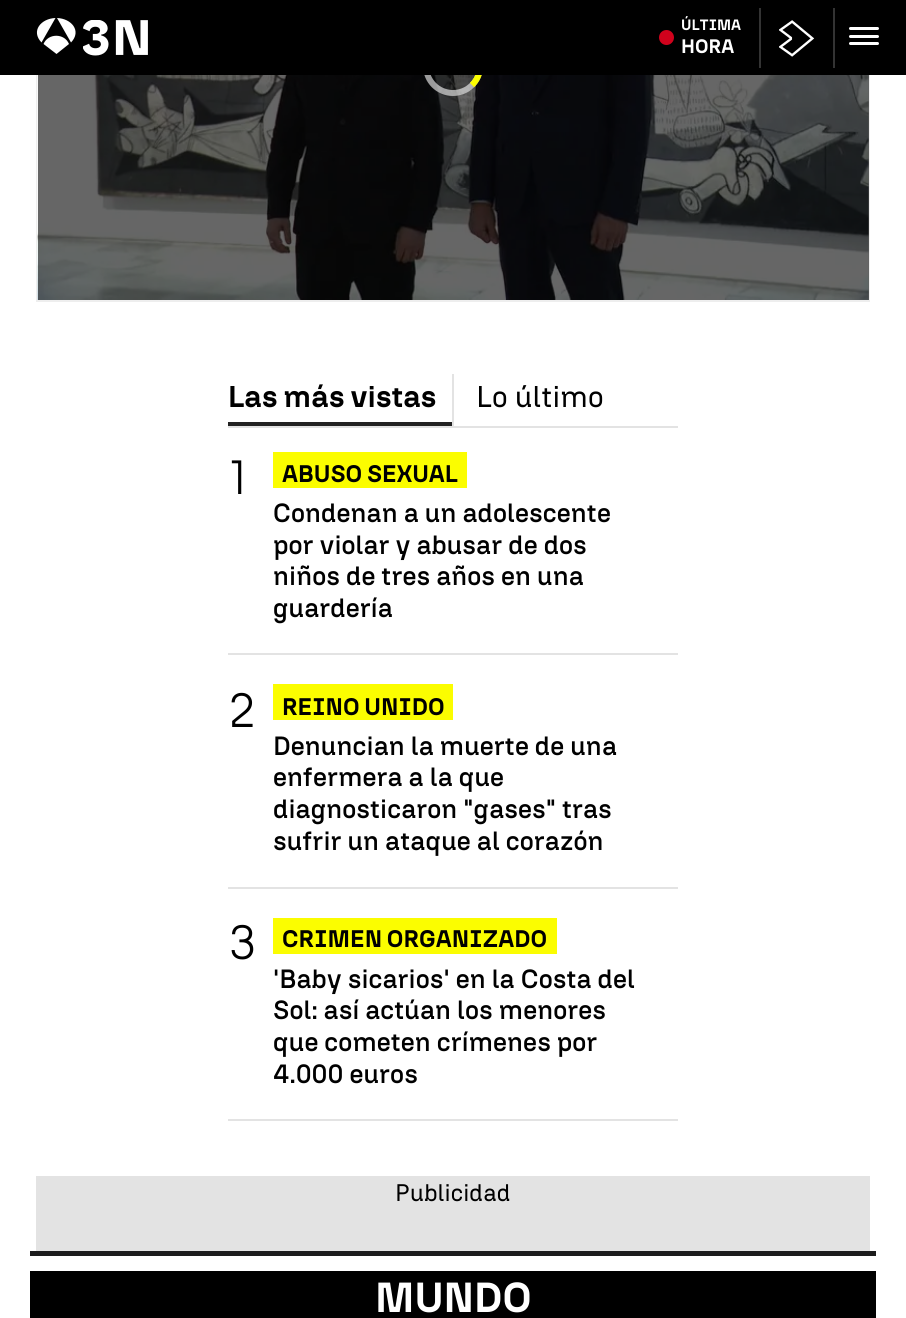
import math
import cairocffi as cairo

surface = cairo.ImageSurface(cairo.FORMAT_RGB24, 906, 1318)
cr = cairo.Context(surface)
options = cairo.FontOptions()
options.set_hint_metrics(cairo.HINT_METRICS_OFF)
options.set_hint_style(cairo.HINT_STYLE_NONE)
cr.set_font_options(options)
cr.set_miter_limit(4)


def use_color(code):
    cr.set_source_rgb(*(v / 255 for v in bytes.fromhex(code[-6:])))


def round_rect(x, y, w, h, r):
    cr.new_sub_path()
    for i, (u, v) in enumerate([(x + w - r, y + h - r), (x + r, y + h - r), (x + r, y + r), (x + w - r, y + r)]):
        cr.arc(u, v, r, i * math.pi / 2, (i + 1) * math.pi / 2)
    cr.close_path()


def picture(path, x, y, w, h):
    cr.save()
    cr.set_source_surface(cairo.ImageSurface.create_from_png(path), x, y)
    cr.rectangle(x, y, w, h)
    cr.fill()
    cr.restore()


use_color("#ffffff")
cr.paint()
cr.rectangle(37, -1, 832, 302)
use_color("#eeeeee")
cr.stroke()
picture("img3.png", 37, 75, 832, 225)
picture("img4.png", 37, 75, 832, 225)
cr.set_source_rgba(0, 0, 0, 0.6)
cr.rectangle(38, 75, 831, 225)
cr.fill()
cr.set_source_rgba(0, 0, 0, 0.3)
cr.arc(453, 66, 30, 0, 2 * math.pi)
cr.fill()
cr.arc(453, 66, 27, 0, 2 * math.pi)
cr.set_source_rgba(1, 1, 1, 0.6)
cr.set_line_width(6)
cr.stroke()
cr.new_path()
cr.move_to(434, 47)
cr.curve_to(437.5, 43, 442.5, 40.5, 447.5, 39.5)
cr.curve_to(473.5, 34.5, 491, 66.5, 472, 85)
use_color("#fbfd00")
cr.stroke()
use_color("#000000")
cr.rectangle(0, 0, 906, 75)
cr.fill()
use_color("#ffffff")
cr.new_path()
cr.move_to(55.5, 18)
cr.curve_to(41, 18.5, 30.5, 31, 41.5, 42.5)
cr.close_path()
cr.move_to(71, 42.5)
cr.curve_to(82, 31, 71.5, 18.5, 57, 18)
cr.close_path()
cr.fill()
cr.new_path()
cr.move_to(69, 44)
cr.line_to(56.5, 54)
cr.line_to(43.5, 44)
cr.curve_to(48, 33, 64.5, 33, 69, 44)
cr.close_path()
cr.fill()
picture("img1.png", 83, 20, 65, 36)
cr.select_font_face("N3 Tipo", cairo.FONT_SLANT_NORMAL, cairo.FONT_WEIGHT_BOLD)
cr.set_font_size(15)
cr.move_to(681, 30)
cr.show_text("ÚLTIMA")
use_color("#d0021c")
cr.new_path()
cr.arc(666.5, 37.5, 7.5, 0, 2 * math.pi)
cr.fill()
cr.set_font_size(19.5)
use_color("#ffffff")
cr.move_to(681, 53)
cr.show_text("HORA")
use_color("#333333")
cr.rectangle(759, 8, 2, 60)
cr.fill()
picture("img2.png", 779, 20, 36, 37)
cr.rectangle(833, 8, 2, 60)
cr.fill()
use_color("#ffffff")
round_rect(849, 27, 30, 3, 1.5)
cr.fill()
round_rect(849, 35, 30, 3, 1.5)
cr.fill()
round_rect(849, 42, 30, 3, 1.5)
cr.fill()
use_color("#e3e3e3")
cr.rectangle(228, 426, 450, 2)
cr.fill()
cr.rectangle(452, 374, 2, 52)
cr.fill()
use_color("#222222")
cr.rectangle(228, 422, 224, 4)
cr.fill()
cr.set_font_size(30)
use_color("#000000")
cr.move_to(228, 407)
cr.show_text("Las más vistas")
cr.select_font_face("N3 Tipo")
cr.move_to(476, 407)
cr.show_text("Lo último")
use_color("#e3e3e3")
cr.rectangle(228, 653, 450, 2)
cr.fill()
cr.select_font_face("N3 Tipo Light")
cr.set_font_size(48)
use_color("#000000")
cr.move_to(228, 494)
cr.show_text("1")
use_color("#fbfd00")
cr.rectangle(273, 452, 194, 36)
cr.fill()
cr.select_font_face("N3 Tipo", cairo.FONT_SLANT_NORMAL, cairo.FONT_WEIGHT_BOLD)
cr.set_font_size(24)
use_color("#000000")
cr.move_to(282, 482)
cr.show_text("ABUSO SEXUAL")
cr.select_font_face("N3 Tipo Medium")
cr.set_font_size(26.4)
cr.move_to(273, 522)
cr.show_text("Condenan a un adolescente")
cr.move_to(273, 554)
cr.show_text("por violar y abusar de dos")
cr.move_to(273, 585)
cr.show_text("niños de tres años en una")
cr.move_to(273, 617)
cr.show_text("guardería")
use_color("#e3e3e3")
cr.rectangle(228, 887, 450, 2)
cr.fill()
cr.select_font_face("N3 Tipo Light")
cr.set_font_size(48)
use_color("#000000")
cr.move_to(228, 727)
cr.show_text("2")
use_color("#fbfd00")
cr.rectangle(273, 684, 180, 36)
cr.fill()
cr.select_font_face("N3 Tipo", cairo.FONT_SLANT_NORMAL, cairo.FONT_WEIGHT_BOLD)
cr.set_font_size(24)
use_color("#000000")
cr.move_to(282, 715)
cr.show_text("REINO UNIDO")
cr.select_font_face("N3 Tipo Medium")
cr.set_font_size(26.4)
cr.move_to(273, 755)
cr.show_text("Denuncian la muerte de una")
cr.move_to(273, 786)
cr.show_text("enfermera a la que")
cr.move_to(273, 818)
cr.show_text("diagnosticaron \"gases\" tras")
cr.move_to(273, 850)
cr.show_text("sufrir un ataque al corazón")
use_color("#e3e3e3")
cr.rectangle(228, 1119, 450, 2)
cr.fill()
cr.select_font_face("N3 Tipo Light")
cr.set_font_size(48)
use_color("#000000")
cr.move_to(228, 959)
cr.show_text("3")
use_color("#fbfd00")
cr.rectangle(273, 918, 284, 36)
cr.fill()
cr.select_font_face("N3 Tipo", cairo.FONT_SLANT_NORMAL, cairo.FONT_WEIGHT_BOLD)
cr.set_font_size(24)
use_color("#000000")
cr.move_to(282, 947)
cr.show_text("CRIMEN ORGANIZADO")
cr.select_font_face("N3 Tipo Medium")
cr.set_font_size(26.4)
cr.move_to(273, 988)
cr.show_text("'Baby sicarios' en la Costa del")
cr.move_to(273, 1019)
cr.show_text("Sol: así actúan los menores")
cr.move_to(273, 1051)
cr.show_text("que cometen crímenes por")
cr.move_to(273, 1083)
cr.show_text("4.000 euros")
use_color("#e3e3e3")
cr.rectangle(36, 1176, 834, 75)
cr.fill()
cr.select_font_face("N3 Tipo")
cr.set_font_size(24)
use_color("#000000")
cr.move_to(395, 1201)
cr.show_text("Publicidad")
use_color("#1c1c1d")
cr.rectangle(30, 1251, 846, 5)
cr.fill()
use_color("#000000")
cr.rectangle(30, 1271, 846, 47)
cr.fill()
cr.select_font_face("N3 Tipo", cairo.FONT_SLANT_NORMAL, cairo.FONT_WEIGHT_BOLD)
cr.set_font_size(42)
use_color("#ffffff")
cr.move_to(375, 1312)
cr.show_text("MUNDO")
surface.write_to_png("result.png")
